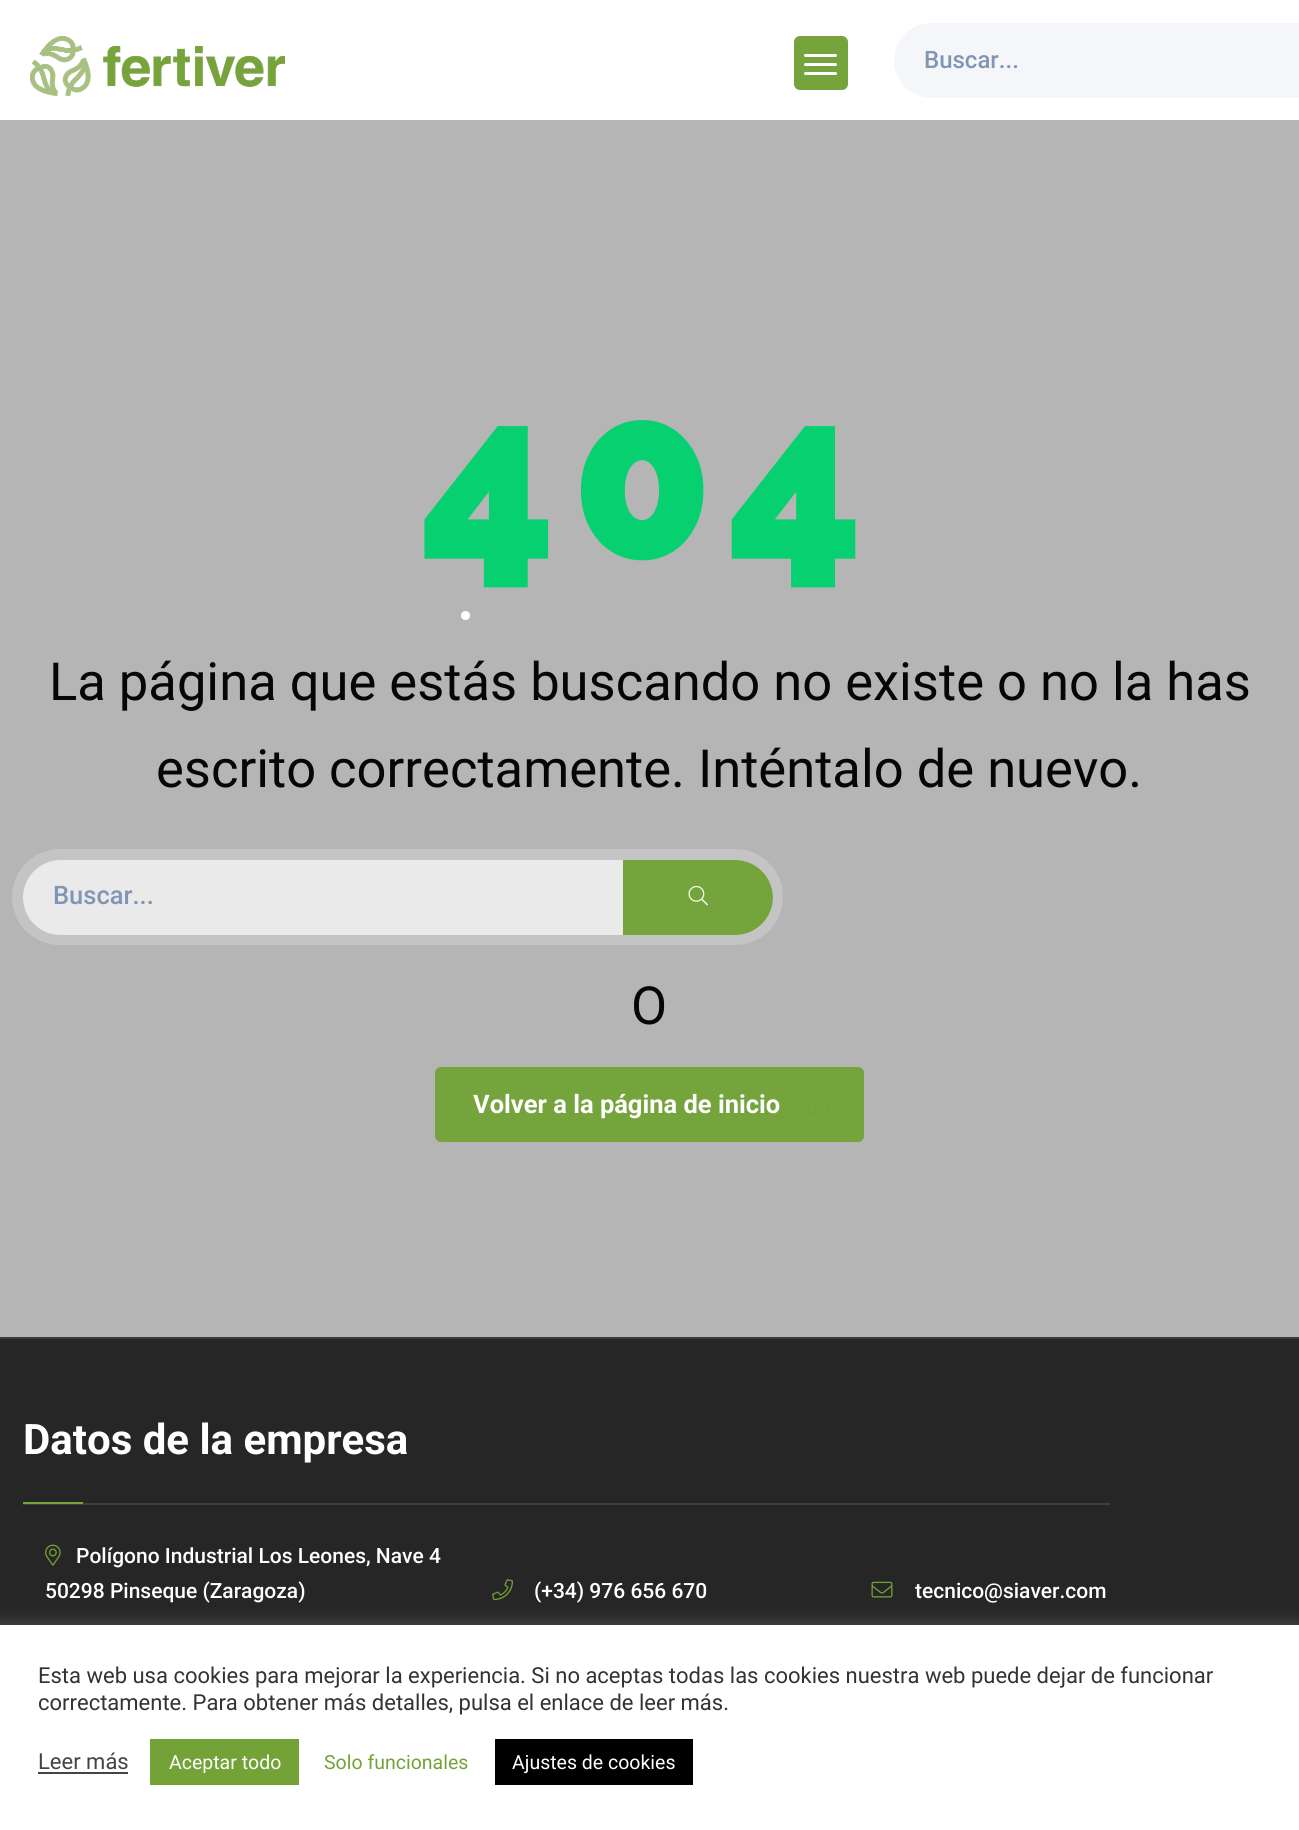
import math
import cairocffi as cairo

surface = cairo.ImageSurface(cairo.FORMAT_RGB24, 1299, 1830)
cr = cairo.Context(surface)
options = cairo.FontOptions()
options.set_hint_metrics(cairo.HINT_METRICS_OFF)
options.set_hint_style(cairo.HINT_STYLE_NONE)
cr.set_font_options(options)
cr.set_miter_limit(4)


def use_color(code):
    cr.set_source_rgb(*(v / 255 for v in bytes.fromhex(code[-6:])))


def spaced_text(x, y, s, letter, word):
    cr.move_to(x, y)
    for ch in s:
        cr.show_text(ch)
        cr.rel_move_to(letter + word * (ch == ' '), 0)


def round_rect(x, y, w, h, r):
    cr.new_sub_path()
    for i, (u, v) in enumerate([(x + w - r, y + h - r), (x + r, y + h - r), (x + r, y + r), (x + w - r, y + r)]):
        cr.arc(u, v, r, i * math.pi / 2, (i + 1) * math.pi / 2)
    cr.close_path()


def shadow(x, y, w, h, r, blur, alpha):
    cr.push_group_with_content(cairo.CONTENT_ALPHA)
    cr.set_operator(cairo.OPERATOR_SOURCE)
    for i in range(15, -16, -2):
        e = blur * i / 6
        if min(w, h) + 2 * e > 0:
            cr.set_source_rgba(0, 0, 0, alpha * math.erfc((i - 1) / 8.5) / 2)
            round_rect(x - e, y - e, w + 2 * e, h + 2 * e, max(0, min(r + e + blur * .6, min(w, h) / 2 + e)))
            cr.fill()
    cr.mask(cr.pop_group())


def picture(path, x, y, w, h):
    cr.save()
    cr.set_source_surface(cairo.ImageSurface.create_from_png(path), x, y)
    cr.rectangle(x, y, w, h)
    cr.fill()
    cr.restore()


use_color("#ffffff")
cr.paint()
picture("img1.png", 30, 36, 255, 60)
use_color("#76a43c")
round_rect(794, 36, 54, 54, 6)
cr.fill()
use_color("#ffffff")
round_rect(804, 54, 33, 3, 1.5)
cr.fill()
round_rect(804, 63, 33, 3, 1.5)
cr.fill()
round_rect(804, 72, 33, 3, 1.5)
cr.fill()
use_color("#f5f6fa")
round_rect(894, 23, 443, 75, 37.5)
cr.fill()
cr.select_font_face("Roboto Medium")
cr.set_font_size(24)
use_color("#8096b4")
cr.move_to(924, 68)
cr.show_text("Buscar...")
use_color("#b5b5b5")
cr.rectangle(0, 120, 1299, 1217)
cr.fill()
cr.select_font_face("Raleway Black")
cr.set_font_size(231)
use_color("#06d06f")
spaced_text(421, 558, "404", 15, 0)
use_color("#ffffff")
cr.new_path()
cr.arc(465.5, 615.5, 4.5, 0, 2 * math.pi)
cr.fill()
cr.select_font_face("Roboto")
cr.set_font_size(52.5)
use_color("#060606")
cr.move_to(49, 700)
cr.show_text("La página que estás buscando no existe o no la has")
cr.move_to(156, 787)
cr.show_text("escrito correctamente. Inténtalo de nuevo.")
round_rect(17.5, 854.5, 760, 85, 42.5)
use_color("#c4c4c4")
cr.set_line_width(11)
cr.stroke()
use_color("#eaeaea")
round_rect(23, 860, 750, 75, 37.5)
cr.fill()
cr.select_font_face("Roboto Medium")
cr.set_font_size(25.5)
use_color("#8096b4")
cr.move_to(53, 904)
cr.show_text("Buscar...")
use_color("#76a43c")
cr.new_path()
cr.move_to(623, 860)
cr.line_to(735.5, 860)
cr.curve_to(756, 860, 773, 877, 773, 897.5)
cr.curve_to(773, 918, 756, 935, 735.5, 935)
cr.line_to(623, 935)
cr.close_path()
cr.fill()
picture("img2.png", 688, 885, 20, 21)
cr.select_font_face("Roboto")
cr.set_font_size(52.5)
use_color("#060606")
cr.move_to(631, 1024)
cr.show_text("O")
use_color("#76a43c")
round_rect(435, 1067, 429, 75, 6)
cr.fill()
cr.select_font_face("Roboto", cairo.FONT_SLANT_NORMAL, cairo.FONT_WEIGHT_BOLD)
cr.set_font_size(25.5)
use_color("#ffffff")
cr.move_to(473, 1113)
cr.show_text("Volver a la página de inicio")
picture("img3.png", 804, 1093, 28, 21)
use_color("#262626")
cr.rectangle(0, 1339, 1299, 286)
cr.fill()
use_color("#3c3c3c")
cr.rectangle(0, 1337, 1299, 2)
cr.fill()
use_color("#3e3e3e")
cr.rectangle(23, 1503, 1087, 2)
cr.fill()
cr.set_font_size(42)
use_color("#ffffff")
cr.move_to(23, 1454)
cr.show_text("Datos de la empresa")
use_color("#76a43c")
cr.rectangle(23, 1502, 60, 2)
cr.fill()
picture("img4.png", 45, 1544, 16, 22)
cr.select_font_face("Roboto Medium")
cr.set_font_size(21)
use_color("#ffffff")
cr.move_to(76, 1563)
cr.show_text("Polígono Industrial Los Leones, Nave 4")
cr.move_to(45, 1598)
cr.show_text("50298 Pinseque (Zaragoza)")
picture("img5.png", 492, 1579, 21, 22)
cr.move_to(534, 1598)
cr.show_text("(+34) 976 656 670")
picture("img6.png", 871, 1581, 22, 17)
cr.move_to(915, 1598)
cr.show_text("tecnico@siaver.com")
use_color("#acabab")
shadow(0, 1623, 1299, 206, 0, 7.5, 0.3)
use_color("#ffffff")
cr.rectangle(0, 1625, 1299, 205)
cr.fill()
cr.select_font_face("Roboto")
cr.set_font_size(22)
use_color("#333333")
cr.move_to(38, 1683)
cr.show_text("Esta web usa cookies para mejorar la experiencia. Si no aceptas todas las cookies nuestra web puede dejar de funcionar")
cr.move_to(38, 1710)
cr.show_text("correctamente. Para obtener más detalles, pulsa el enlace de leer más.")
use_color("#444444")
cr.move_to(38, 1769)
cr.show_text("Leer más")
cr.rectangle(38, 1772, 90, 2)
cr.fill()
use_color("#73a237")
cr.rectangle(150, 1739, 149, 46)
cr.fill()
cr.set_font_size(19.5)
use_color("#ffffff")
cr.move_to(169, 1769)
cr.show_text("Aceptar todo")
use_color("#73a237")
cr.move_to(324, 1769)
cr.show_text("Solo funcionales")
use_color("#000000")
cr.rectangle(495, 1739, 198, 46)
cr.fill()
use_color("#ffffff")
cr.move_to(512, 1769)
cr.show_text("Ajustes de cookies")
surface.write_to_png("result.png")
